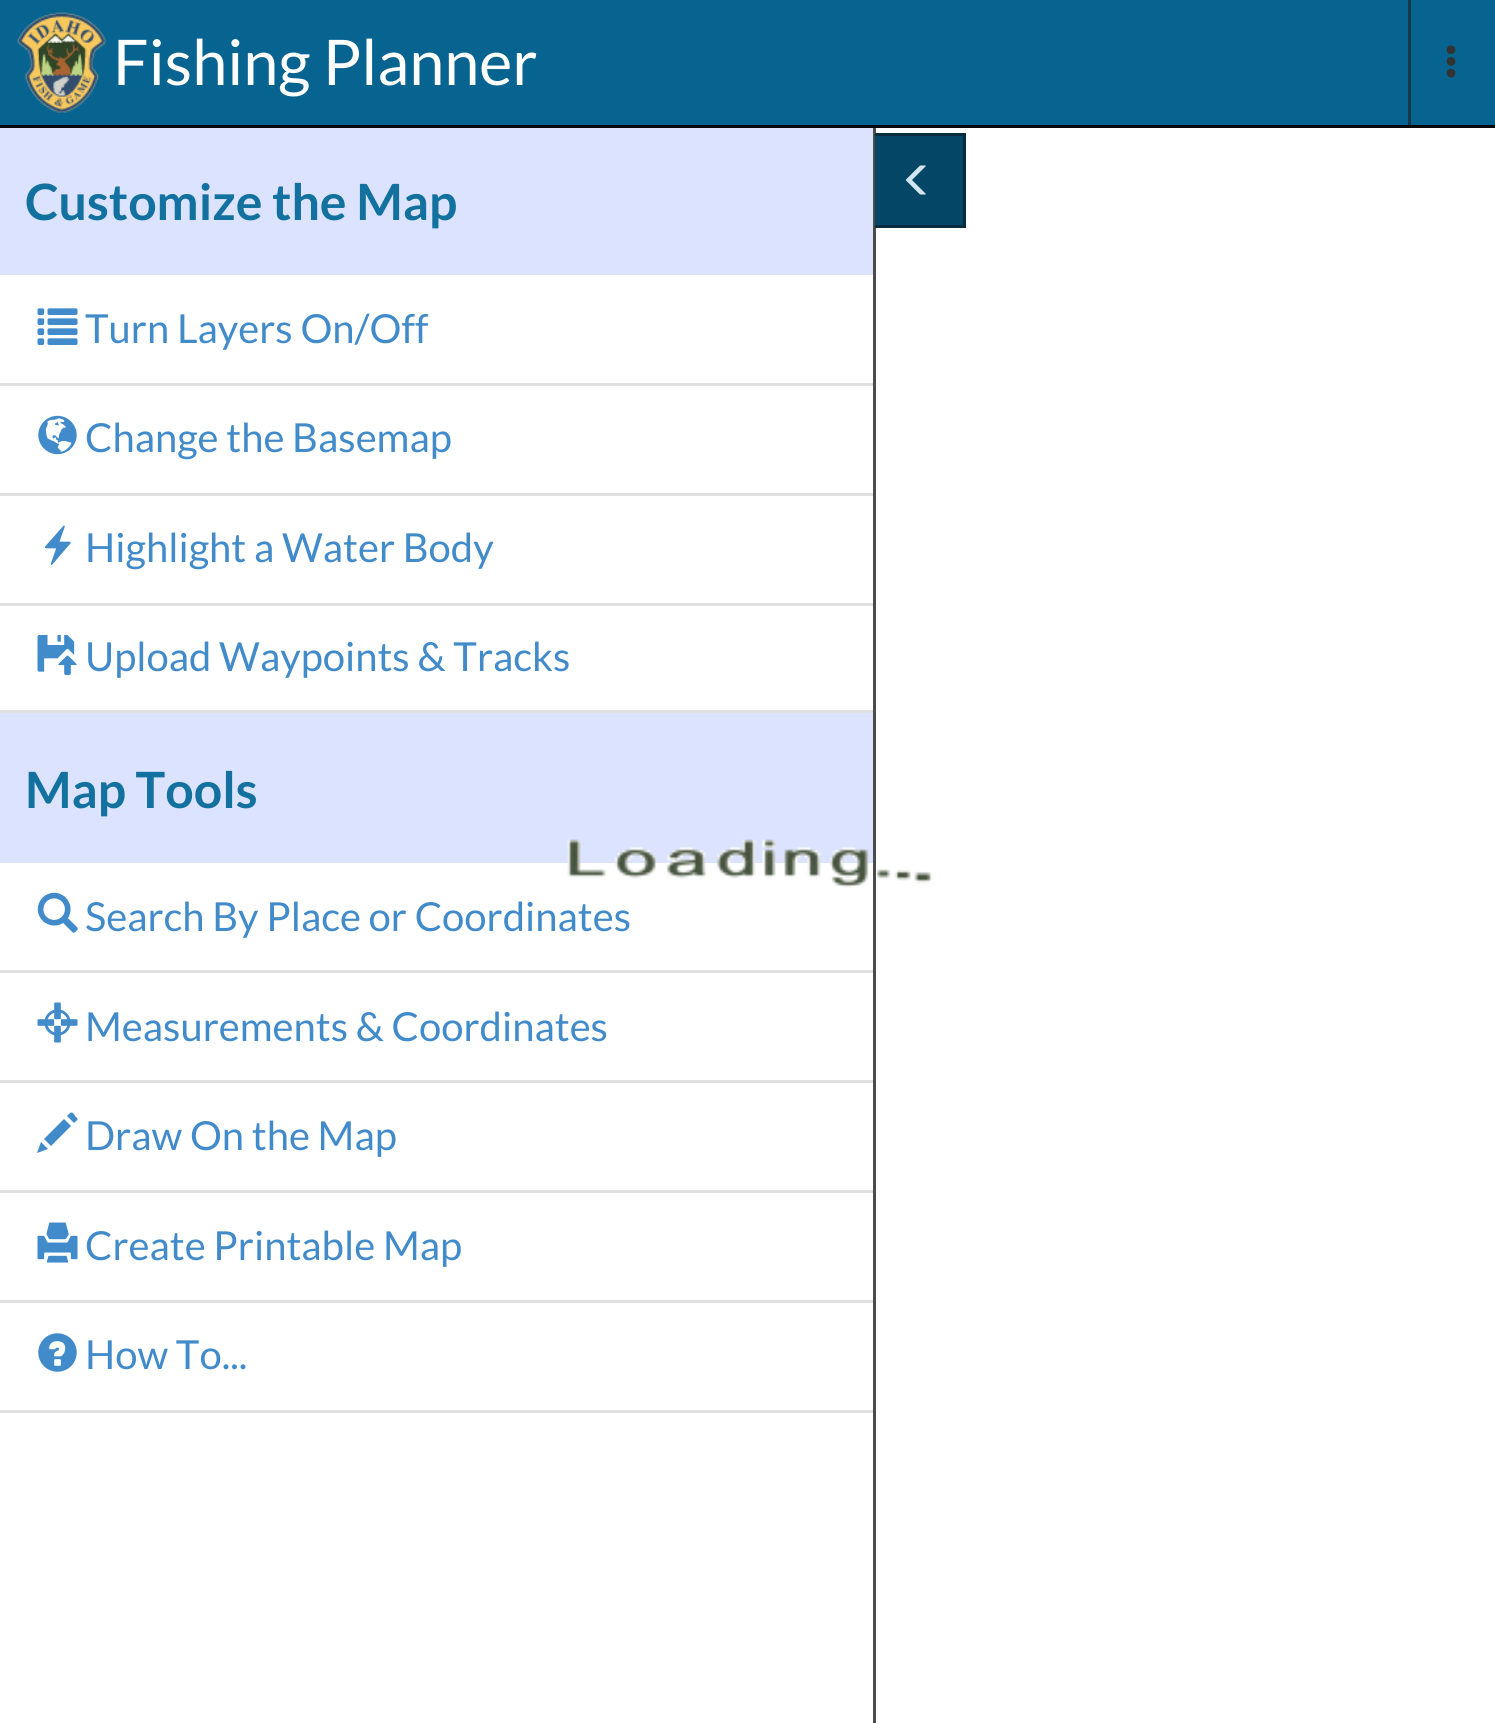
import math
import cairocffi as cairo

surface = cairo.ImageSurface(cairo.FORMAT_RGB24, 1495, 1723)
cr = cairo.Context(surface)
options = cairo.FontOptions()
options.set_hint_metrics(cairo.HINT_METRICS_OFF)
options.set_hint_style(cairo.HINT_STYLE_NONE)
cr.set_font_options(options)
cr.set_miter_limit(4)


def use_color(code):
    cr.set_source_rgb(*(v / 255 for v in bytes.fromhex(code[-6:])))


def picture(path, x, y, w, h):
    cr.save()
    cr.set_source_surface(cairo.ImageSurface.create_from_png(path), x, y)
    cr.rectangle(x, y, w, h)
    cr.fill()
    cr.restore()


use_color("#ffffff")
cr.paint()
use_color("#076490")
cr.rectangle(0, 0, 1495, 125)
cr.fill()
use_color("#4c4c4c")
cr.rectangle(873, 125, 3, 1598)
cr.fill()
use_color("#080808")
cr.rectangle(0, 125, 1495, 3)
cr.fill()
picture("img1.png", 17, 12, 89, 101)
cr.select_font_face("Lato")
cr.set_font_size(63)
use_color("#ffffff")
cr.move_to(113, 85)
cr.show_text("Fishing Planner")
use_color("#15394a")
cr.rectangle(1408, 0, 3, 125)
cr.fill()
picture("img2.png", 1446, 45, 10, 33)
use_color("#dbe3ff")
cr.rectangle(0, 128, 873, 147)
cr.fill()
cr.select_font_face("Lato", cairo.FONT_SLANT_NORMAL, cairo.FONT_WEIGHT_BOLD)
cr.set_font_size(50)
use_color("#12719e")
cr.move_to(25, 220)
cr.show_text("Customize the Map")
use_color("#e0e0e0")
cr.rectangle(0, 383, 873, 3)
cr.fill()
picture("img3.png", 37, 308, 41, 37)
cr.select_font_face("Lato")
cr.set_font_size(40)
use_color("#428bca")
cr.move_to(85, 343)
cr.show_text("Turn Layers On/Off")
use_color("#e0e0e0")
cr.rectangle(0, 493, 873, 3)
cr.fill()
picture("img4.png", 38, 415, 39, 40)
use_color("#428bca")
cr.move_to(85, 452)
cr.show_text("Change the Basemap")
use_color("#e0e0e0")
cr.rectangle(0, 603, 873, 3)
cr.fill()
picture("img5.png", 45, 525, 26, 40)
use_color("#428bca")
cr.move_to(85, 562)
cr.show_text("Highlight a Water Body")
use_color("#e0e0e0")
cr.rectangle(0, 710, 873, 3)
cr.fill()
picture("img6.png", 37, 635, 40, 40)
use_color("#428bca")
cr.move_to(85, 671)
cr.show_text("Upload Waypoints & Tracks")
use_color("#dbe3ff")
cr.rectangle(0, 713, 873, 150)
cr.fill()
cr.select_font_face("Lato", cairo.FONT_SLANT_NORMAL, cairo.FONT_WEIGHT_BOLD)
cr.set_font_size(50)
use_color("#12719e")
cr.move_to(25, 808)
cr.show_text("Map Tools")
use_color("#e0e0e0")
cr.rectangle(0, 970, 873, 3)
cr.fill()
picture("img7.png", 37, 892, 41, 41)
cr.select_font_face("Lato")
cr.set_font_size(40)
use_color("#428bca")
cr.move_to(85, 931)
cr.show_text("Search By Place or Coordinates")
use_color("#e0e0e0")
cr.rectangle(0, 1080, 873, 3)
cr.fill()
picture("img8.png", 37, 1002, 41, 41)
use_color("#428bca")
cr.move_to(85, 1041)
cr.show_text("Measurements & Coordinates")
use_color("#e0e0e0")
cr.rectangle(0, 1190, 873, 3)
cr.fill()
use_color("#428bca")
cr.new_path()
cr.move_to(70, 1113)
cr.curve_to(72, 1111, 75, 1115, 75, 1116)
cr.curve_to(79, 1120, 78, 1119, 74, 1123)
cr.line_to(67, 1116)
cr.close_path()
cr.move_to(71, 1126)
cr.line_to(51, 1146)
cr.line_to(44, 1139)
cr.line_to(64, 1119)
cr.close_path()
cr.move_to(48, 1149)
cr.line_to(37, 1153)
cr.line_to(41, 1142)
cr.close_path()
cr.fill()
cr.move_to(85, 1150)
cr.show_text("Draw On the Map")
use_color("#e0e0e0")
cr.rectangle(0, 1300, 873, 3)
cr.fill()
picture("img9.png", 37, 1222, 41, 41)
use_color("#428bca")
cr.move_to(85, 1260)
cr.show_text("Create Printable Map")
use_color("#e0e0e0")
cr.rectangle(0, 1410, 873, 3)
cr.fill()
picture("img10.png", 38, 1333, 39, 39)
use_color("#428bca")
cr.move_to(85, 1369)
cr.show_text("How To...")
use_color("#044665")
cr.rectangle(875, 136, 88, 89)
cr.fill()
use_color("#092d3e")
cr.rectangle(875, 133, 90, 3)
cr.fill()
cr.rectangle(963, 133, 3, 95)
cr.fill()
cr.rectangle(875, 225, 90, 3)
cr.fill()
picture("img11.png", 905, 165, 21, 30)
picture("img12.png", 567, 839, 366, 49)
surface.write_to_png("result.png")
